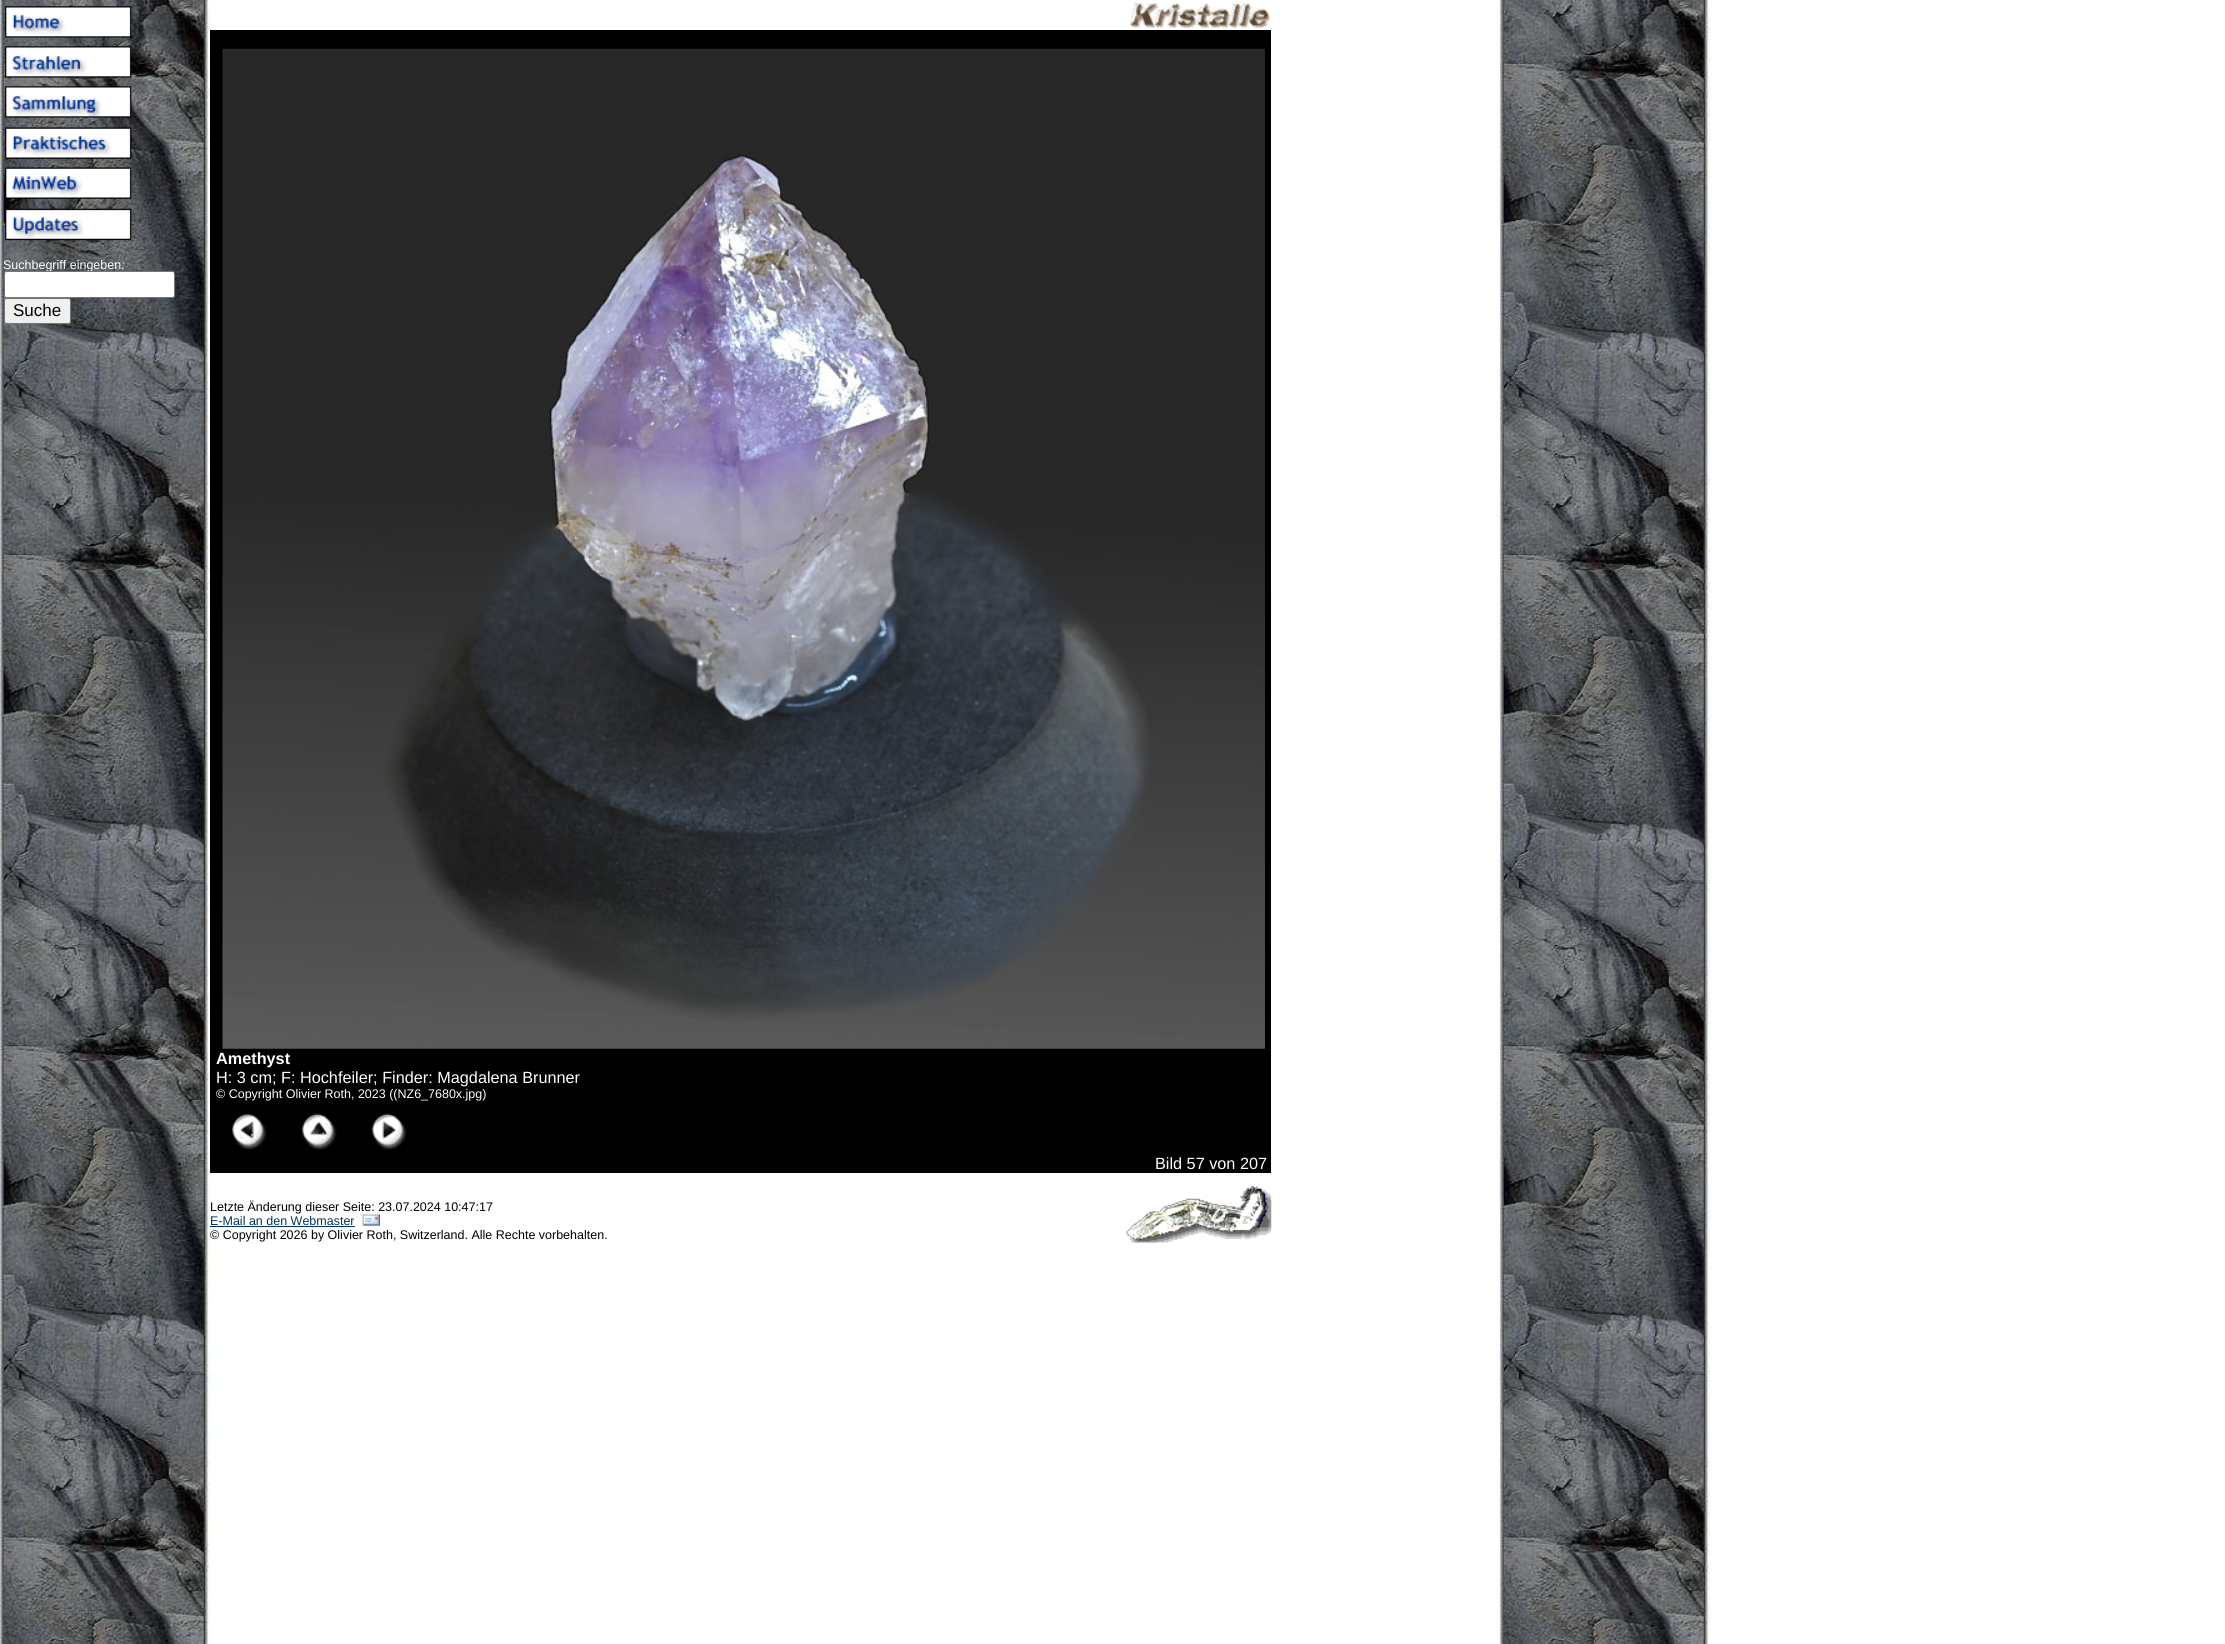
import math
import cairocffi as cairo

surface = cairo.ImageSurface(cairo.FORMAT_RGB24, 2225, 1644)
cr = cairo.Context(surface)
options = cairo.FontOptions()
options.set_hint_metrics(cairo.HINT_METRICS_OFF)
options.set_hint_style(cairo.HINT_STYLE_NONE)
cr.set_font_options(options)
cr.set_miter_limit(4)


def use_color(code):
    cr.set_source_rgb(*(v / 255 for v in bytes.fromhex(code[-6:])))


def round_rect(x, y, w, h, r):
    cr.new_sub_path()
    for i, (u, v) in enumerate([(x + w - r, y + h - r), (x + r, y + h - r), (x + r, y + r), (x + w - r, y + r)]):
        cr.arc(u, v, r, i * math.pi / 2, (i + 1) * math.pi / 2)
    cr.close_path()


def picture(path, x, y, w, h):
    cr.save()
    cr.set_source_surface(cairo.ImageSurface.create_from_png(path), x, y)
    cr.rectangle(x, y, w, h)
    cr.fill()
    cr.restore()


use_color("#ffffff")
cr.paint()
picture("img1.png", 0, 0, 1711, 1644)
picture("img2.png", 4, 6, 128, 235)
cr.select_font_face("Liberation Sans")
cr.set_font_size(12.5)
use_color("#ffffff")
cr.move_to(3, 269)
cr.show_text("Suchbegriff eingeben:")
round_rect(4.5, 271.5, 170, 26, 2)
cr.fill_preserve()
use_color("#767676")
cr.set_line_width(1)
cr.stroke()
use_color("#efefef")
round_rect(4.5, 298.5, 66, 25, 2)
cr.fill_preserve()
use_color("#767676")
cr.stroke()
cr.set_font_size(17)
use_color("#000000")
cr.move_to(13, 316)
cr.show_text("Suche")
picture("img3.png", 1130, 2, 141, 26)
cr.rectangle(210, 30, 1061, 1143)
cr.fill()
picture("img4.png", 222, 48, 1043, 1001)
cr.select_font_face("Liberation Sans", cairo.FONT_SLANT_NORMAL, cairo.FONT_WEIGHT_BOLD)
cr.set_font_size(16.25)
use_color("#ffffff")
cr.move_to(216, 1064)
cr.show_text("Amethyst")
cr.select_font_face("Liberation Sans")
cr.move_to(216, 1083)
cr.show_text("H: 3 cm; F: Hochfeiler; Finder: Magdalena Brunner")
cr.set_font_size(12.5)
cr.move_to(216, 1098)
cr.show_text("© Copyright Olivier Roth, 2023 ((NZ6_7680x.jpg)")
picture("img5.png", 231, 1113, 36, 37)
picture("img6.png", 301, 1113, 36, 37)
picture("img7.png", 371, 1113, 36, 37)
cr.set_font_size(16.25)
cr.move_to(1155, 1169)
cr.show_text("Bild 57 von 207")
cr.rectangle(210, 1183, 9, 60)
cr.fill()
cr.set_font_size(12.5)
use_color("#000000")
cr.move_to(210, 1211)
cr.show_text("Letzte Änderung dieser Seite: 23.07.2024 10:47:17")
picture("img8.png", 1126, 1186, 146, 57)
use_color("#003366")
cr.move_to(210, 1225)
cr.show_text("E-Mail an den Webmaster")
cr.rectangle(210, 1226, 145, 1)
cr.fill()
picture("img9.png", 362, 1214, 18, 12)
use_color("#000000")
cr.move_to(210, 1239)
cr.show_text("© Copyright 2026 by Olivier Roth, Switzerland. Alle Rechte vorbehalten.")
surface.write_to_png("result.png")
